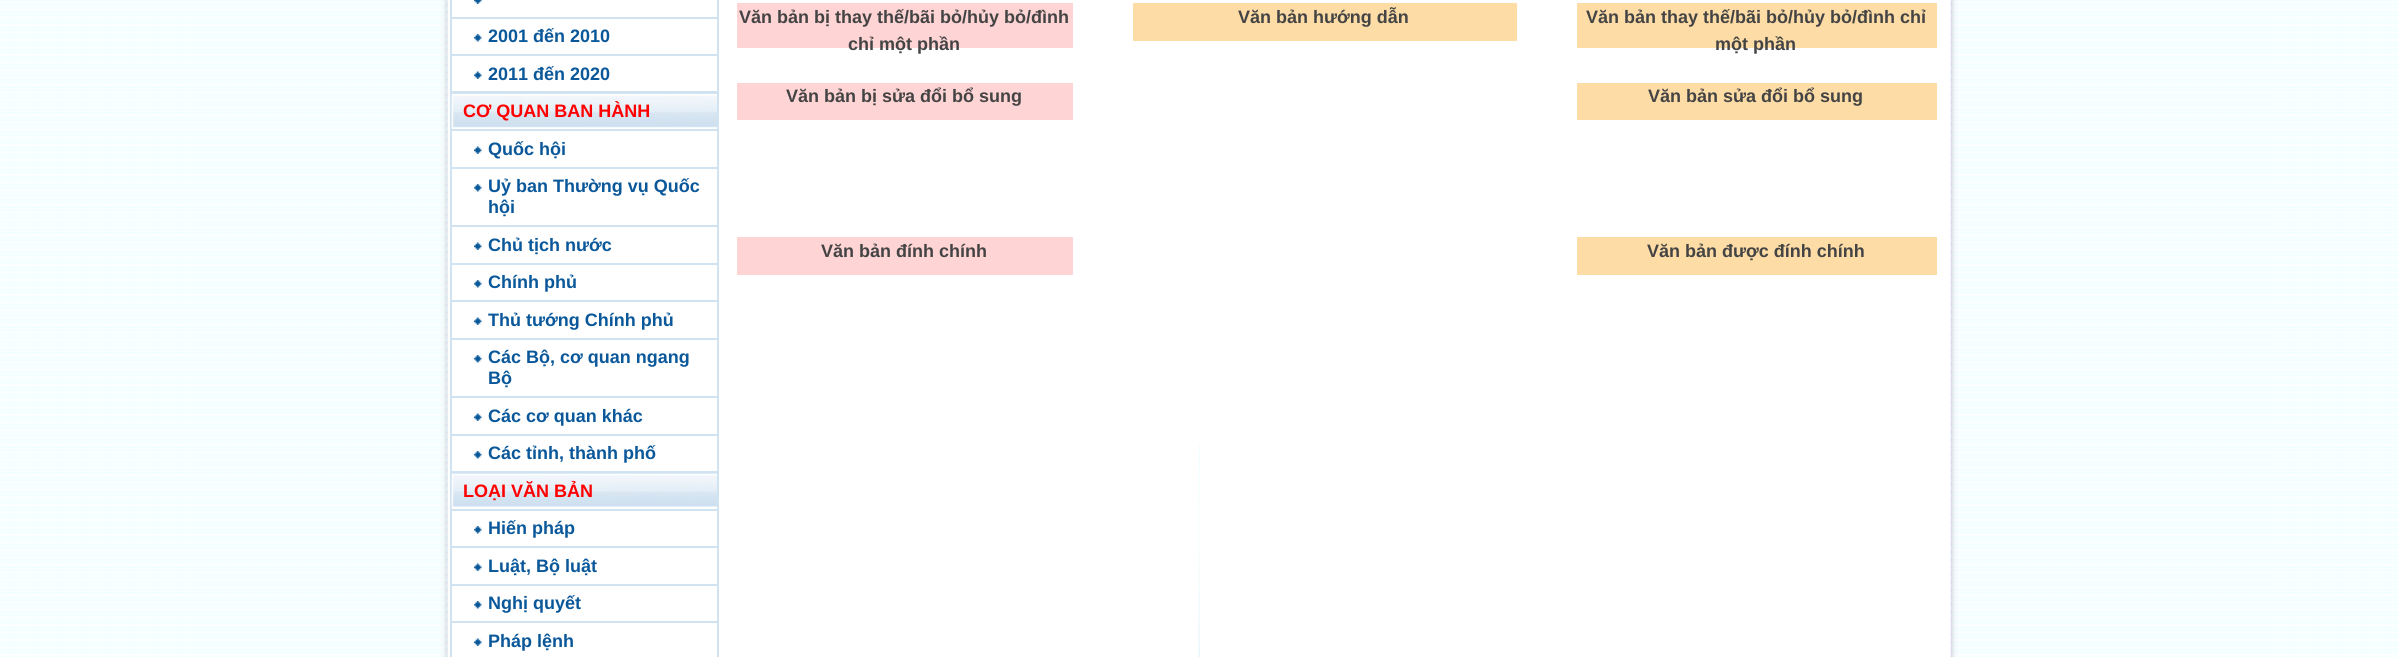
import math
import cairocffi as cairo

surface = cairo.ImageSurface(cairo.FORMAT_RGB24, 2398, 657)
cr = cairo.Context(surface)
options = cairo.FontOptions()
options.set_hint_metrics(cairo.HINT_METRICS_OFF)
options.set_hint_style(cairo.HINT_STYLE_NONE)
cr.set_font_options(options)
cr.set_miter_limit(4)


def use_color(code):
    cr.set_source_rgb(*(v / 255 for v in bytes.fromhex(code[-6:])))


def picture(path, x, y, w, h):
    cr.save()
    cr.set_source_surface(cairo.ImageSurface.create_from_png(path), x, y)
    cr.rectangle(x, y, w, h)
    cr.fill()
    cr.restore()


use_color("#ffffff")
cr.paint()
picture("img1.png", 0, 0, 2398, 657)
picture("img2.png", 1198, 445, 2, 212)
cr.rectangle(451, -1, 267, 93)
use_color("#d1e3f1")
cr.stroke()
picture("img3.png", 474, 0, 8, 4)
picture("img4.png", 474, 34, 8, 8)
cr.rectangle(452, 17, 265, 2)
cr.fill()
cr.select_font_face("Liberation Sans", cairo.FONT_SLANT_NORMAL, cairo.FONT_WEIGHT_BOLD)
cr.set_font_size(18)
use_color("#0a589a")
cr.move_to(488, 42)
cr.show_text("2001 đến 2010")
picture("img5.png", 474, 71, 8, 8)
use_color("#d1e3f1")
cr.rectangle(452, 54, 265, 2)
cr.fill()
use_color("#0a589a")
cr.move_to(488, 80)
cr.show_text("2011 đến 2020")
cr.rectangle(451, 94, 267, 378)
use_color("#d1e3f1")
cr.stroke()
picture("img6.png", 451, 94, 266, 35)
use_color("#ff0000")
cr.move_to(463, 117)
cr.show_text("CƠ QUAN BAN HÀNH")
picture("img5.png", 474, 146, 8, 8)
use_color("#d1e3f1")
cr.rectangle(452, 129, 265, 2)
cr.fill()
use_color("#0a589a")
cr.move_to(488, 155)
cr.show_text("Quốc hội")
picture("img4.png", 474, 184, 8, 8)
use_color("#d1e3f1")
cr.rectangle(452, 167, 265, 2)
cr.fill()
use_color("#0a589a")
cr.move_to(488, 192)
cr.show_text("Uỷ ban Thường vụ Quốc")
cr.move_to(488, 213)
cr.show_text("hội")
picture("img5.png", 474, 242, 8, 8)
use_color("#d1e3f1")
cr.rectangle(452, 225, 265, 2)
cr.fill()
use_color("#0a589a")
cr.move_to(488, 251)
cr.show_text("Chủ tịch nước")
picture("img4.png", 474, 280, 8, 8)
use_color("#d1e3f1")
cr.rectangle(452, 263, 265, 2)
cr.fill()
use_color("#0a589a")
cr.move_to(488, 288)
cr.show_text("Chính phủ")
picture("img5.png", 474, 317, 8, 8)
use_color("#d1e3f1")
cr.rectangle(452, 300, 265, 2)
cr.fill()
use_color("#0a589a")
cr.move_to(488, 326)
cr.show_text("Thủ tướng Chính phủ")
picture("img4.png", 474, 355, 8, 8)
use_color("#d1e3f1")
cr.rectangle(452, 338, 265, 2)
cr.fill()
use_color("#0a589a")
cr.move_to(488, 363)
cr.show_text("Các Bộ, cơ quan ngang")
cr.move_to(488, 384)
cr.show_text("Bộ")
picture("img5.png", 474, 413, 8, 8)
use_color("#d1e3f1")
cr.rectangle(452, 396, 265, 2)
cr.fill()
use_color("#0a589a")
cr.move_to(488, 422)
cr.show_text("Các cơ quan khác")
picture("img4.png", 474, 451, 8, 8)
use_color("#d1e3f1")
cr.rectangle(452, 434, 265, 2)
cr.fill()
use_color("#0a589a")
cr.move_to(488, 459)
cr.show_text("Các tỉnh, thành phố")
cr.rectangle(451, 474, 267, 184)
use_color("#d1e3f1")
cr.stroke()
picture("img7.png", 451, 473, 266, 35)
use_color("#ff0000")
cr.move_to(463, 497)
cr.show_text("LOẠI VĂN BẢN")
picture("img4.png", 474, 526, 8, 8)
use_color("#d1e3f1")
cr.rectangle(452, 509, 265, 2)
cr.fill()
use_color("#0a589a")
cr.move_to(488, 534)
cr.show_text("Hiến pháp")
picture("img5.png", 474, 563, 8, 8)
use_color("#d1e3f1")
cr.rectangle(452, 546, 265, 2)
cr.fill()
use_color("#0a589a")
cr.move_to(488, 572)
cr.show_text("Luật, Bộ luật")
picture("img4.png", 474, 601, 8, 8)
use_color("#d1e3f1")
cr.rectangle(452, 584, 265, 2)
cr.fill()
use_color("#0a589a")
cr.move_to(488, 609)
cr.show_text("Nghị quyết")
picture("img5.png", 474, 638, 8, 8)
use_color("#d1e3f1")
cr.rectangle(452, 621, 265, 2)
cr.fill()
use_color("#0a589a")
cr.move_to(488, 647)
cr.show_text("Pháp lệnh")
use_color("#ffd4d5")
cr.rectangle(737, 3, 336, 45)
cr.fill()
use_color("#444444")
cr.move_to(739, 23)
cr.show_text("Văn bản bị thay thế/bãi bỏ/hủy bỏ/đình")
cr.move_to(848, 50)
cr.show_text("chỉ một phần")
use_color("#fddca6")
cr.rectangle(1133, 3, 384, 38)
cr.fill()
use_color("#444444")
cr.move_to(1238, 23)
cr.show_text("Văn bản hướng dẫn")
use_color("#fddca6")
cr.rectangle(1577, 3, 360, 45)
cr.fill()
use_color("#444444")
cr.move_to(1586, 23)
cr.show_text("Văn bản thay thế/bãi bỏ/hủy bỏ/đình chỉ")
cr.move_to(1715, 50)
cr.show_text("một phần")
use_color("#ffd4d5")
cr.rectangle(737, 83, 336, 37)
cr.fill()
use_color("#444444")
cr.move_to(786, 102)
cr.show_text("Văn bản bị sửa đổi bổ sung")
use_color("#fddca6")
cr.rectangle(1577, 83, 360, 37)
cr.fill()
use_color("#444444")
cr.move_to(1648, 102)
cr.show_text("Văn bản sửa đổi bổ sung")
use_color("#ffd4d5")
cr.rectangle(737, 237, 336, 38)
cr.fill()
use_color("#444444")
cr.move_to(821, 257)
cr.show_text("Văn bản đính chính")
use_color("#fddca6")
cr.rectangle(1577, 237, 360, 38)
cr.fill()
use_color("#444444")
cr.move_to(1647, 257)
cr.show_text("Văn bản được đính chính")
surface.write_to_png("result.png")
